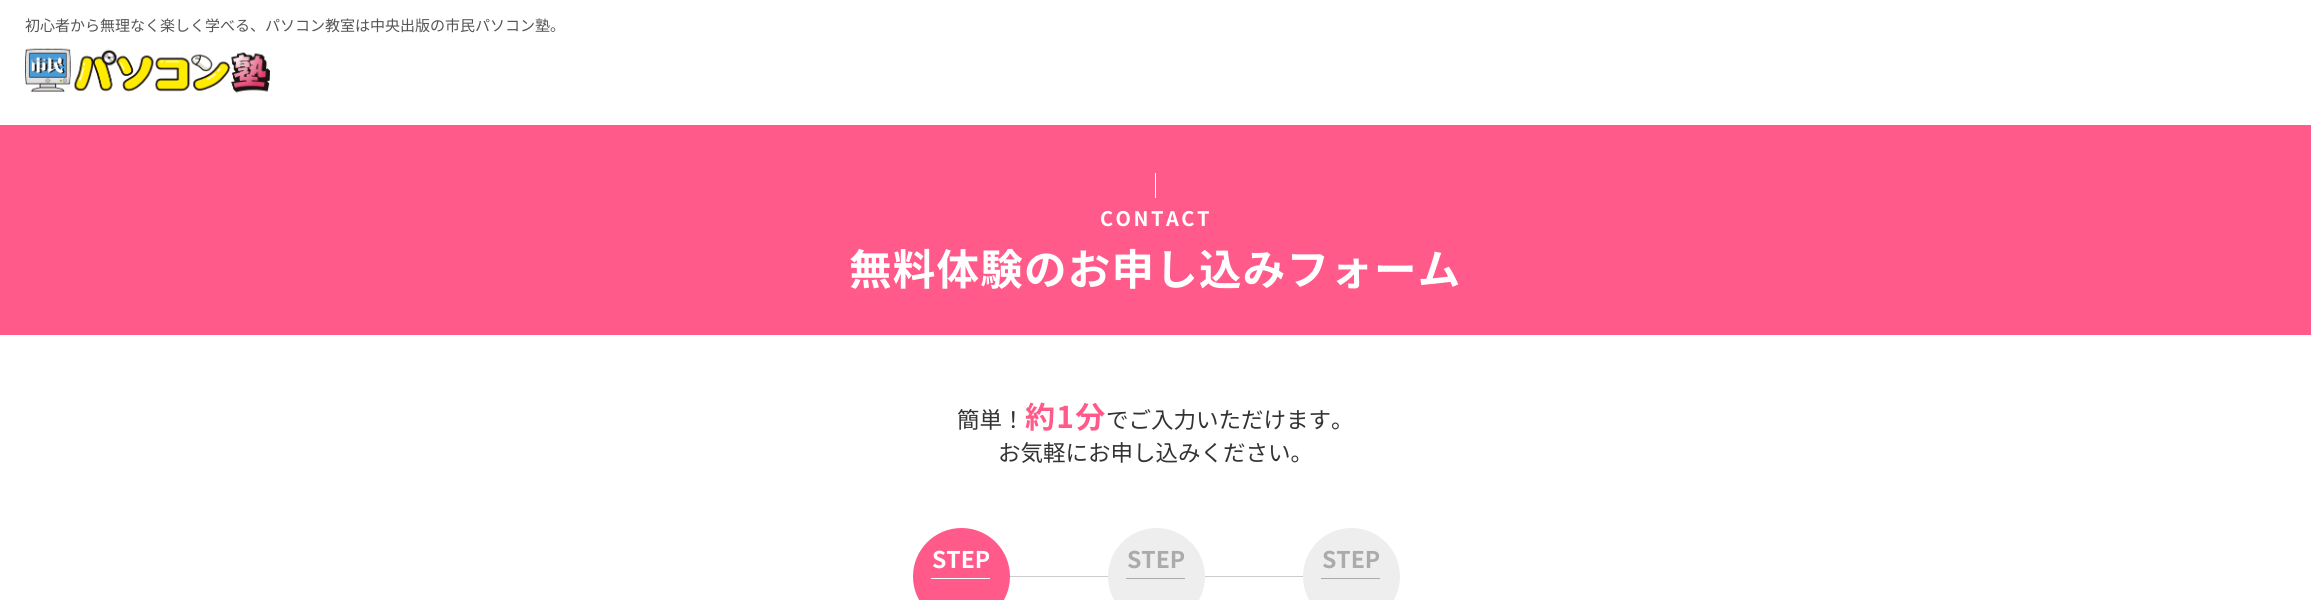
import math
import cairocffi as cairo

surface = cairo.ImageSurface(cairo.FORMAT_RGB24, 2311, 600)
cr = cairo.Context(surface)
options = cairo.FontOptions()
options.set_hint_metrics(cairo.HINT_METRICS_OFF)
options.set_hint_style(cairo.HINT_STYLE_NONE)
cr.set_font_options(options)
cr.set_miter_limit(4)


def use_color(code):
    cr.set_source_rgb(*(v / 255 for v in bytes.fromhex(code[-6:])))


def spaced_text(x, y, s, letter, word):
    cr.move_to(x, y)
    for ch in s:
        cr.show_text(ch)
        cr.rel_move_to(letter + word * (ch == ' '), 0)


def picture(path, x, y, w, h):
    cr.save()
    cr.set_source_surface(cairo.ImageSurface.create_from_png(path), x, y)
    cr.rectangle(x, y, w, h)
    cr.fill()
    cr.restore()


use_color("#ffffff")
cr.paint()
cr.select_font_face("Noto Sans JP")
cr.set_font_size(15)
use_color("#555555")
cr.move_to(25, 31)
cr.show_text("初心者から無理なく楽しく学べる、パソコン教室は中央出版の市民パソコン塾。")
picture("img1.png", 25, 48, 245, 45)
use_color("#ff5a89")
cr.rectangle(0, 125, 2311, 210)
cr.fill()
use_color("#ffffff")
cr.rectangle(1155, 173, 1, 25)
cr.fill()
cr.select_font_face("Noto Sans JP", cairo.FONT_SLANT_NORMAL, cairo.FONT_WEIGHT_BOLD)
cr.set_font_size(20)
spaced_text(1100, 226, "CONTACT", 2.5, 0)
cr.set_font_size(42.5)
spaced_text(849, 285, "無料体験のお申し込みフォーム", 1.25, 0)
cr.select_font_face("Noto Sans JP")
cr.set_font_size(22.5)
use_color("#333333")
cr.move_to(957, 428)
cr.show_text("簡単！")
cr.select_font_face("Noto Sans JP", cairo.FONT_SLANT_NORMAL, cairo.FONT_WEIGHT_BOLD)
cr.set_font_size(30)
use_color("#ff5a89")
spaced_text(1025, 428, "約1分", 1.25, 0)
cr.select_font_face("Noto Sans JP")
cr.set_font_size(22.5)
use_color("#333333")
cr.move_to(1106, 428)
cr.show_text("でご入力いただけます。")
cr.move_to(998, 461)
cr.show_text("お気軽にお申し込みください。")
use_color("#cccccc")
cr.rectangle(1009, 576, 295, 1)
cr.fill()
use_color("#ff5a89")
cr.arc(961.5, 576.5, 48.5, 0, 2 * math.pi)
cr.fill()
use_color("#ffffff")
cr.rectangle(931, 578, 59, 1)
cr.fill()
cr.select_font_face("Noto Sans JP", cairo.FONT_SLANT_NORMAL, cairo.FONT_WEIGHT_BOLD)
cr.set_font_size(23)
cr.move_to(932, 568)
cr.show_text("STEP")
use_color("#eeeeee")
cr.new_path()
cr.arc(1156.5, 576.5, 48.5, 0, 2 * math.pi)
cr.fill()
use_color("#ababab")
cr.rectangle(1126, 578, 59, 1)
cr.fill()
cr.move_to(1127, 568)
cr.show_text("STEP")
use_color("#eeeeee")
cr.new_path()
cr.arc(1351.5, 576.5, 48.5, 0, 2 * math.pi)
cr.fill()
use_color("#ababab")
cr.rectangle(1321, 578, 59, 1)
cr.fill()
cr.move_to(1322, 568)
cr.show_text("STEP")
surface.write_to_png("result.png")
